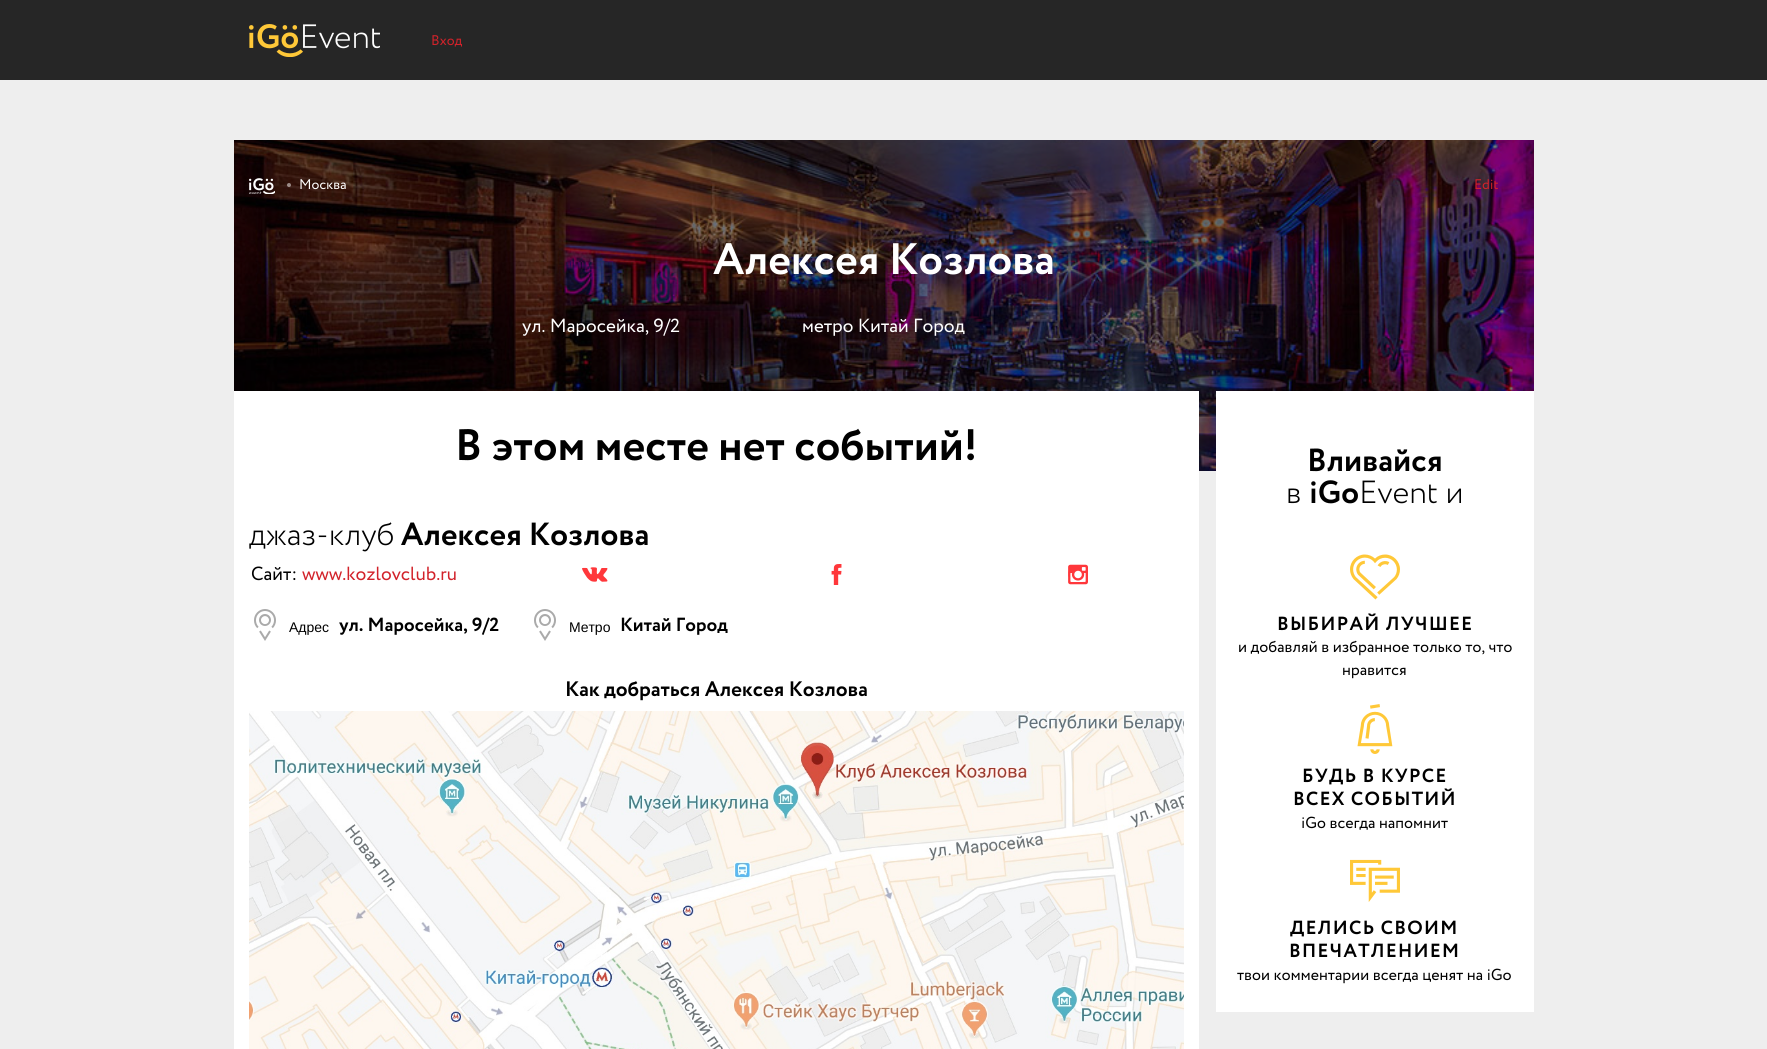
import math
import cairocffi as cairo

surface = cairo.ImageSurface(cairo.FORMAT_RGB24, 1767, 1049)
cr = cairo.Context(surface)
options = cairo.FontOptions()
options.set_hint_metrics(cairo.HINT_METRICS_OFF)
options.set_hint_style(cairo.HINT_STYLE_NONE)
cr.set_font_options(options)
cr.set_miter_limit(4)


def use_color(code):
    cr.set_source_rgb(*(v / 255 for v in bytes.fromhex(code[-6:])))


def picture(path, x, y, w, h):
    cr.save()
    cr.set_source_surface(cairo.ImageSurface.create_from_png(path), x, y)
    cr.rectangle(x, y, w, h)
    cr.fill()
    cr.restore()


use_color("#eeeeee")
cr.paint()
use_color("#262626")
cr.rectangle(0, 0, 1767, 80)
cr.fill()
picture("img1.png", 249, 24, 131, 33)
picture("img2.png", 432, 35, 30, 12)
picture("img3.png", 234, 140, 1300, 331)
picture("img4.png", 249, 178, 26, 16)
cr.set_source_rgba(1, 1, 1, 0.5)
cr.arc(289, 185, 2, 0, 2 * math.pi)
cr.fill()
picture("img5.png", 300, 179, 46, 11)
picture("img6.png", 1475, 179, 23, 11)
picture("img7.png", 713, 243, 340, 32)
picture("img8.png", 522, 318, 158, 18)
picture("img9.png", 803, 318, 162, 18)
use_color("#ffffff")
cr.rectangle(234, 391, 965, 658)
cr.fill()
picture("img10.png", 459, 428, 515, 33)
picture("img11.png", 249, 522, 144, 30)
picture("img12.png", 401, 522, 247, 24)
picture("img13.png", 251, 566, 45, 15)
picture("img14.png", 302, 566, 154, 15)
picture("img15.png", 582, 567, 26, 15)
picture("img16.png", 831, 564, 11, 21)
picture("img17.png", 1068, 564, 20, 21)
picture("img18.png", 254, 609, 22, 32)
cr.select_font_face("Liberation Sans")
cr.set_font_size(14)
use_color("#000000")
cr.move_to(289, 632)
cr.show_text("Адрес")
picture("img19.png", 339, 617, 160, 18)
picture("img18.png", 534, 609, 22, 32)
cr.move_to(569, 632)
cr.show_text("Метро")
picture("img20.png", 621, 617, 107, 18)
picture("img21.png", 567, 681, 300, 20)
picture("img22.png", 249, 711, 935, 338)
use_color("#ffffff")
cr.rectangle(1216, 391, 318, 621)
cr.fill()
picture("img23.png", 1310, 448, 131, 24)
picture("img24.png", 1288, 488, 12, 16)
picture("img25.png", 1311, 480, 47, 24)
picture("img26.png", 1362, 480, 99, 24)
picture("img27.png", 1350, 554, 50, 46)
picture("img28.png", 1278, 613, 193, 18)
picture("img29.png", 1239, 640, 273, 16)
picture("img30.png", 1343, 667, 63, 12)
picture("img31.png", 1357, 704, 36, 50)
picture("img32.png", 1303, 768, 143, 17)
picture("img33.png", 1294, 788, 160, 18)
picture("img34.png", 1302, 816, 146, 14)
picture("img35.png", 1350, 859, 50, 43)
picture("img36.png", 1290, 920, 166, 17)
picture("img37.png", 1290, 943, 168, 15)
picture("img38.png", 1237, 968, 274, 16)
surface.write_to_png("result.png")
